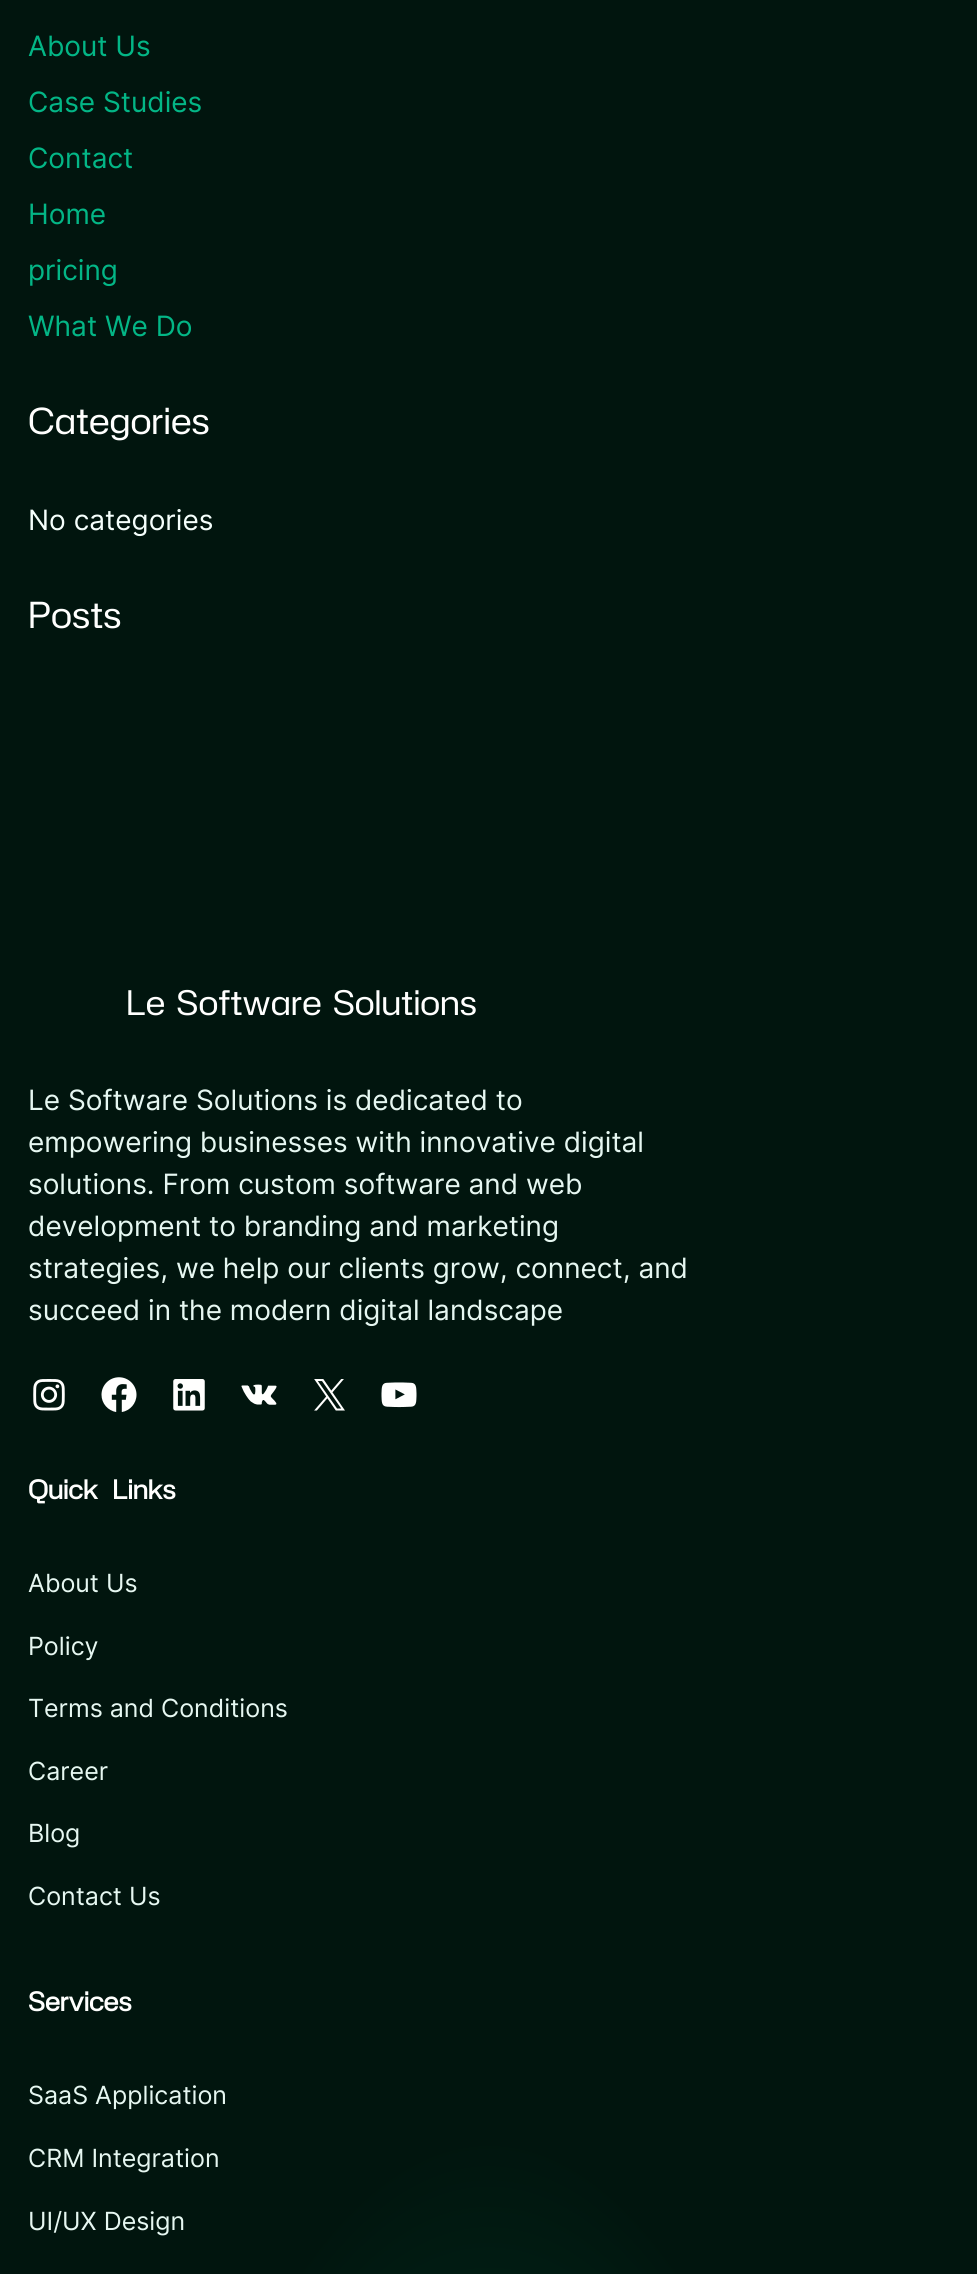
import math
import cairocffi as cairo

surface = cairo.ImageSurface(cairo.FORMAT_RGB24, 977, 2274)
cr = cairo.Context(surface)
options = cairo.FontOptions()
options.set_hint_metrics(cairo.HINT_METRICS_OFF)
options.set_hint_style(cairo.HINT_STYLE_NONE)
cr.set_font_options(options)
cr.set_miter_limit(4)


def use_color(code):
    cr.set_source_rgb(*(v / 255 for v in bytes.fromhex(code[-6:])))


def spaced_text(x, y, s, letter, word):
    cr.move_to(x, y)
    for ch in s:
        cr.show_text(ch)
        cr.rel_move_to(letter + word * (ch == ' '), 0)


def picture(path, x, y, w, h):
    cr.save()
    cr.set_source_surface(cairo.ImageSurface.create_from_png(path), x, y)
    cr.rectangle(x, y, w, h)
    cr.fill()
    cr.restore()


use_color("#ffffff")
cr.paint()
gradient = cairo.RadialGradient(0, 0, 0, 0, 0, 1)
gradient.set_matrix(cairo.Matrix(1 / 293, 0, 0, 1 / 275, -1 * 489 / 293, -1 * -1134 / 275))
gradient.add_color_stop_rgba(0, 0.012, 0.714, 0.525, 1)
gradient.add_color_stop_rgba(1, 0.004, 0.082, 0.055, 1)
cr.set_source(gradient)
cr.rectangle(0, 0, 977, 828)
cr.fill()
cr.select_font_face("Inter")
cr.set_font_size(28)
use_color("#03b686")
cr.move_to(28, 56)
cr.show_text("About Us")
cr.move_to(28, 112)
cr.show_text("Case Studies")
cr.move_to(28, 168)
cr.show_text("Contact")
cr.move_to(28, 224)
cr.show_text("Home")
cr.move_to(28, 280)
cr.show_text("pricing")
cr.move_to(28, 336)
cr.show_text("What We Do")
cr.select_font_face("Hubot Sans")
cr.set_font_size(36)
use_color("#fffffe")
cr.move_to(28, 434)
cr.show_text("Categories")
cr.select_font_face("Inter")
cr.set_font_size(28)
use_color("#f5fffc")
cr.move_to(28, 530)
cr.show_text("No categories")
cr.select_font_face("Hubot Sans")
cr.set_font_size(36)
use_color("#fffffe")
cr.move_to(28, 628)
cr.show_text("Posts")
gradient = cairo.RadialGradient(0, 0, 0, 0, 0, 1)
gradient.set_matrix(cairo.Matrix(1 / 441, 0, 0, 1 / 1344, -1 * 489 / 441, -1 * 3481 / 1344))
gradient.add_color_stop_rgba(0, 0.314, 0.965, 0.788, 1)
gradient.add_color_stop_rgba(0.22, 0.012, 0.714, 0.525, 1)
gradient.add_color_stop_rgba(0.44, 0.008, 0.227, 0.149, 1)
gradient.add_color_stop_rgba(1, 0.004, 0.082, 0.055, 1)
cr.set_source(gradient)
cr.rectangle(0, 828, 977, 1446)
cr.fill()
cr.set_font_size(34)
use_color("#fffffe")
spaced_text(126, 1015, "Le Software Solutions", 0, 5)
cr.select_font_face("Inter")
cr.set_font_size(28)
use_color("#e6f7f1")
cr.move_to(28, 1110)
cr.show_text("Le Software Solutions is dedicated to")
cr.move_to(28, 1152)
cr.show_text("empowering businesses with innovative digital")
cr.move_to(28, 1194)
cr.show_text("solutions. From custom software and web")
cr.move_to(28, 1236)
cr.show_text("development to branding and marketing")
cr.move_to(28, 1278)
cr.show_text("strategies, we help our clients grow, connect, and")
cr.move_to(28, 1320)
cr.show_text("succeed in the modern digital landscape")
picture("img1.png", 33, 1379, 32, 32)
picture("img2.png", 101, 1377, 36, 35)
picture("img3.png", 173, 1379, 32, 32)
picture("img4.png", 241, 1384, 36, 21)
picture("img5.png", 314, 1379, 31, 32)
picture("img6.png", 381, 1382, 36, 26)
cr.select_font_face("Hubot Sans", cairo.FONT_SLANT_NORMAL, cairo.FONT_WEIGHT_BOLD)
cr.set_font_size(26)
use_color("#fffffe")
spaced_text(28, 1499, "Quick Links", 0, 10)
cr.select_font_face("Inter")
cr.set_font_size(25)
use_color("#e6f7f1")
cr.move_to(28, 1592)
cr.show_text("About Us")
cr.move_to(28, 1655)
cr.show_text("Policy")
cr.move_to(28, 1717)
cr.show_text("Terms and Conditions")
cr.move_to(28, 1780)
cr.show_text("Career")
cr.move_to(28, 1842)
cr.show_text("Blog")
cr.move_to(28, 1905)
cr.show_text("Contact Us")
cr.select_font_face("Hubot Sans", cairo.FONT_SLANT_NORMAL, cairo.FONT_WEIGHT_BOLD)
cr.set_font_size(26)
use_color("#fffffe")
cr.move_to(28, 2011)
cr.show_text("Services")
cr.select_font_face("Inter")
cr.set_font_size(25)
use_color("#e6f7f1")
cr.move_to(28, 2104)
cr.show_text("SaaS Application")
cr.move_to(28, 2167)
cr.show_text("CRM Integration")
cr.move_to(28, 2230)
cr.show_text("UI/UX Design")
surface.write_to_png("result.png")
